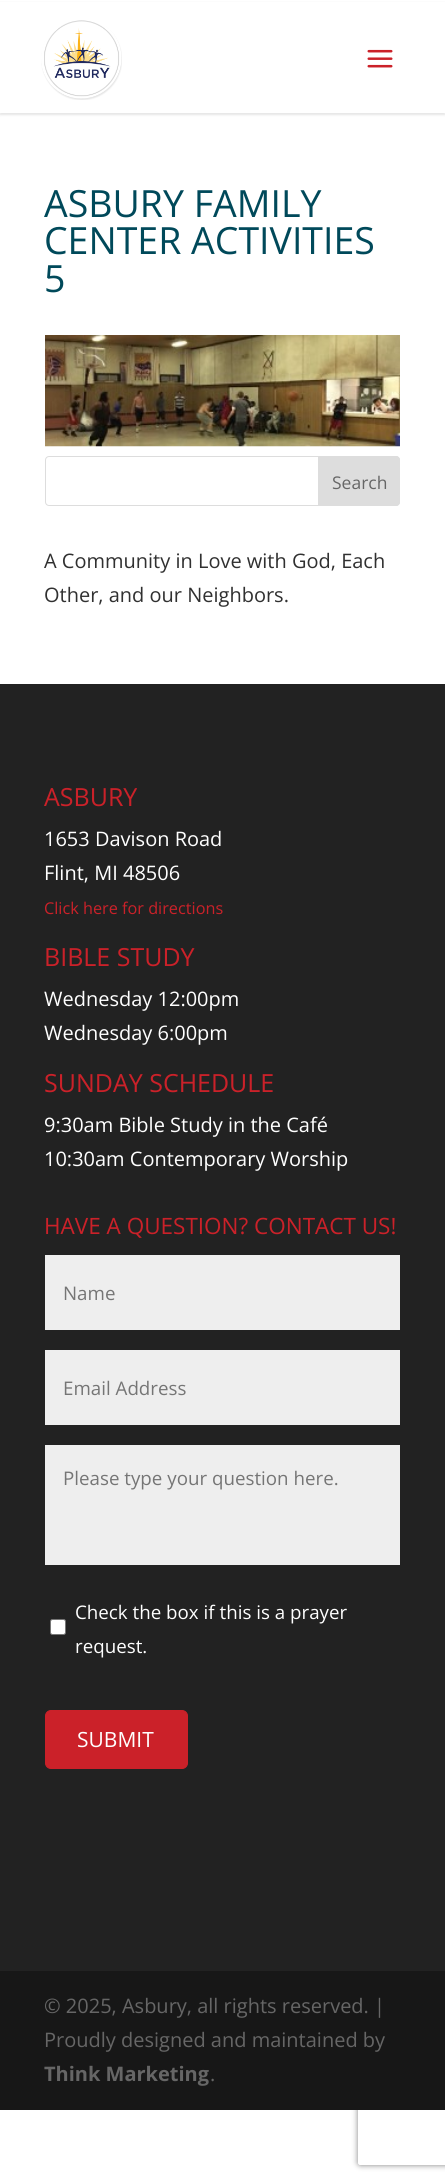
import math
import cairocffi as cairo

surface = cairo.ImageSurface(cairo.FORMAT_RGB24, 445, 2182)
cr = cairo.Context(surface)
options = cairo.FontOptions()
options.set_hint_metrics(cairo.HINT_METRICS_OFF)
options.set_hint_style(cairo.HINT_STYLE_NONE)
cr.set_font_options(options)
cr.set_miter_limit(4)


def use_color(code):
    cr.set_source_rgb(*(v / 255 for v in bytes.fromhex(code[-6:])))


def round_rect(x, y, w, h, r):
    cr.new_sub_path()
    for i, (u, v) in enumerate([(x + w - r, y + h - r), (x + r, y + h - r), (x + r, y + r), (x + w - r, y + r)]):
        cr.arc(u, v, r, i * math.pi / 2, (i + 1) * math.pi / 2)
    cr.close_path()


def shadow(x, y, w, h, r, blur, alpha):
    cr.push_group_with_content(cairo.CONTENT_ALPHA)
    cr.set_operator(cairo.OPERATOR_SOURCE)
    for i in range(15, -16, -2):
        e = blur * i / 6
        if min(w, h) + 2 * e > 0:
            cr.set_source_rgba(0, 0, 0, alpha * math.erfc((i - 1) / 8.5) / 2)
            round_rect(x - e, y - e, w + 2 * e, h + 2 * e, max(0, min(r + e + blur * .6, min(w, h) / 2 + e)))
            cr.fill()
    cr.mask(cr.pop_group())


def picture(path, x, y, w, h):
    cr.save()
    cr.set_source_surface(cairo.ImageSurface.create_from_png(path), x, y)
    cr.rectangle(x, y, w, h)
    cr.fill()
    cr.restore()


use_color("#ffffff")
cr.paint()
use_color("#000000")
shadow(0, 3, 445, 112, 0, 1, 0.1)
use_color("#ffffff")
cr.rectangle(0, 2, 445, 111)
cr.fill()
picture("img1.png", 41, 20, 81, 80)
picture("img2.png", 367, 49, 26, 19)
cr.select_font_face("Open Sans")
cr.set_font_size(37.5)
use_color("#00495a")
cr.move_to(44, 217)
cr.show_text("ASBURY FAMILY")
cr.move_to(44, 254)
cr.show_text("CENTER ACTIVITIES")
cr.move_to(44, 292)
cr.show_text("5")
picture("img3.png", 45, 335, 355, 112)
round_rect(45.5, 456.5, 354, 49, 3.5)
use_color("#dddddd")
cr.set_line_width(1)
cr.stroke()
cr.new_path()
cr.move_to(318.5, 456.5)
cr.line_to(396, 456.5)
cr.curve_to(398, 456.5, 399.5, 458, 399.5, 460)
cr.line_to(399.5, 502)
cr.curve_to(399.5, 504, 398, 505.5, 396, 505.5)
cr.line_to(318.5, 505.5)
cr.close_path()
cr.fill_preserve()
cr.stroke()
cr.set_font_size(17.5)
use_color("#666666")
cr.move_to(332, 489)
cr.show_text("Search")
cr.set_font_size(20)
use_color("#303030")
cr.move_to(44, 568)
cr.show_text("A Community in Love with God, Each")
cr.move_to(44, 602)
cr.show_text("Other, and our Neighbors.")
use_color("#222222")
cr.rectangle(0, 684, 445, 1287)
cr.fill()
cr.set_font_size(25)
use_color("#cb2129")
cr.move_to(44, 806)
cr.show_text("ASBURY")
cr.set_font_size(20)
use_color("#ffffff")
cr.move_to(44, 846)
cr.show_text("1653 Davison Road")
cr.move_to(44, 880)
cr.show_text("Flint, MI 48506")
cr.set_font_size(16.25)
use_color("#cb2129")
cr.move_to(44, 914)
cr.show_text("Click here for directions")
cr.set_font_size(25)
cr.move_to(44, 966)
cr.show_text("BIBLE STUDY")
cr.set_font_size(20)
use_color("#ffffff")
cr.move_to(44, 1006)
cr.show_text("Wednesday 12:00pm")
cr.move_to(44, 1040)
cr.show_text("Wednesday 6:00pm")
cr.set_font_size(25)
use_color("#cb2129")
cr.move_to(44, 1092)
cr.show_text("SUNDAY SCHEDULE")
cr.set_font_size(20)
use_color("#ffffff")
cr.move_to(44, 1132)
cr.show_text("9:30am Bible Study in the Café")
cr.move_to(44, 1166)
cr.show_text("10:30am Contemporary Worship")
cr.set_font_size(22.5)
use_color("#cb2129")
cr.move_to(44, 1234)
cr.show_text("HAVE A QUESTION? CONTACT US!")
use_color("#eeeeee")
cr.rectangle(45, 1255, 355, 75)
cr.fill()
cr.set_font_size(18.75)
use_color("#757575")
cr.move_to(63, 1300)
cr.show_text("Name")
use_color("#eeeeee")
cr.rectangle(45, 1350, 355, 75)
cr.fill()
use_color("#757575")
cr.move_to(63, 1395)
cr.show_text("Email Address")
use_color("#eeeeee")
cr.rectangle(45, 1445, 355, 120)
cr.fill()
use_color("#757575")
cr.move_to(63, 1485)
cr.show_text("Please type your question here.")
use_color("#ffffff")
round_rect(50.5, 1619.5, 15, 15, 2)
cr.fill_preserve()
use_color("#767676")
cr.stroke()
use_color("#ffffff")
cr.move_to(75, 1619)
cr.show_text("Check the box if this is a prayer")
cr.move_to(75, 1653)
cr.show_text("request.")
use_color("#cb2129")
round_rect(45.5, 1710.5, 142, 58, 5.5)
cr.fill_preserve()
cr.stroke()
cr.set_font_size(21)
use_color("#ffffff")
cr.move_to(77, 1747)
cr.show_text("SUBMIT")
cr.save()
cr.set_fill_rule(cairo.FILL_RULE_EVEN_ODD)
cr.new_path()
cr.move_to(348, 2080)
cr.line_to(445, 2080)
cr.line_to(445, 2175)
cr.line_to(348, 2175)
cr.close_path()
cr.move_to(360.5, 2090)
cr.line_to(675.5, 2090)
cr.curve_to(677, 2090, 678, 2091, 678, 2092.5)
cr.line_to(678, 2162.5)
cr.curve_to(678, 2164, 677, 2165, 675.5, 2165)
cr.line_to(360.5, 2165)
cr.curve_to(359, 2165, 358, 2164, 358, 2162.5)
cr.line_to(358, 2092.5)
cr.curve_to(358, 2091, 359, 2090, 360.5, 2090)
cr.close_path()
cr.clip()
use_color("#808080")
shadow(358, 2090, 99, 75, 2.5, 3, 1)
cr.restore()
use_color("#171717")
cr.rectangle(0, 1971, 445, 139)
cr.fill()
cr.set_font_size(20)
use_color("#666666")
cr.move_to(44, 2013)
cr.show_text("© 2025, Asbury, all rights reserved. |")
cr.move_to(44, 2047)
cr.show_text("Proudly designed and maintained by")
cr.select_font_face("Open Sans", cairo.FONT_SLANT_NORMAL, cairo.FONT_WEIGHT_BOLD)
cr.move_to(44, 2081)
cr.show_text("Think Marketing")
cr.select_font_face("Open Sans")
cr.move_to(210, 2081)
cr.show_text(".")
surface.write_to_png("result.png")
